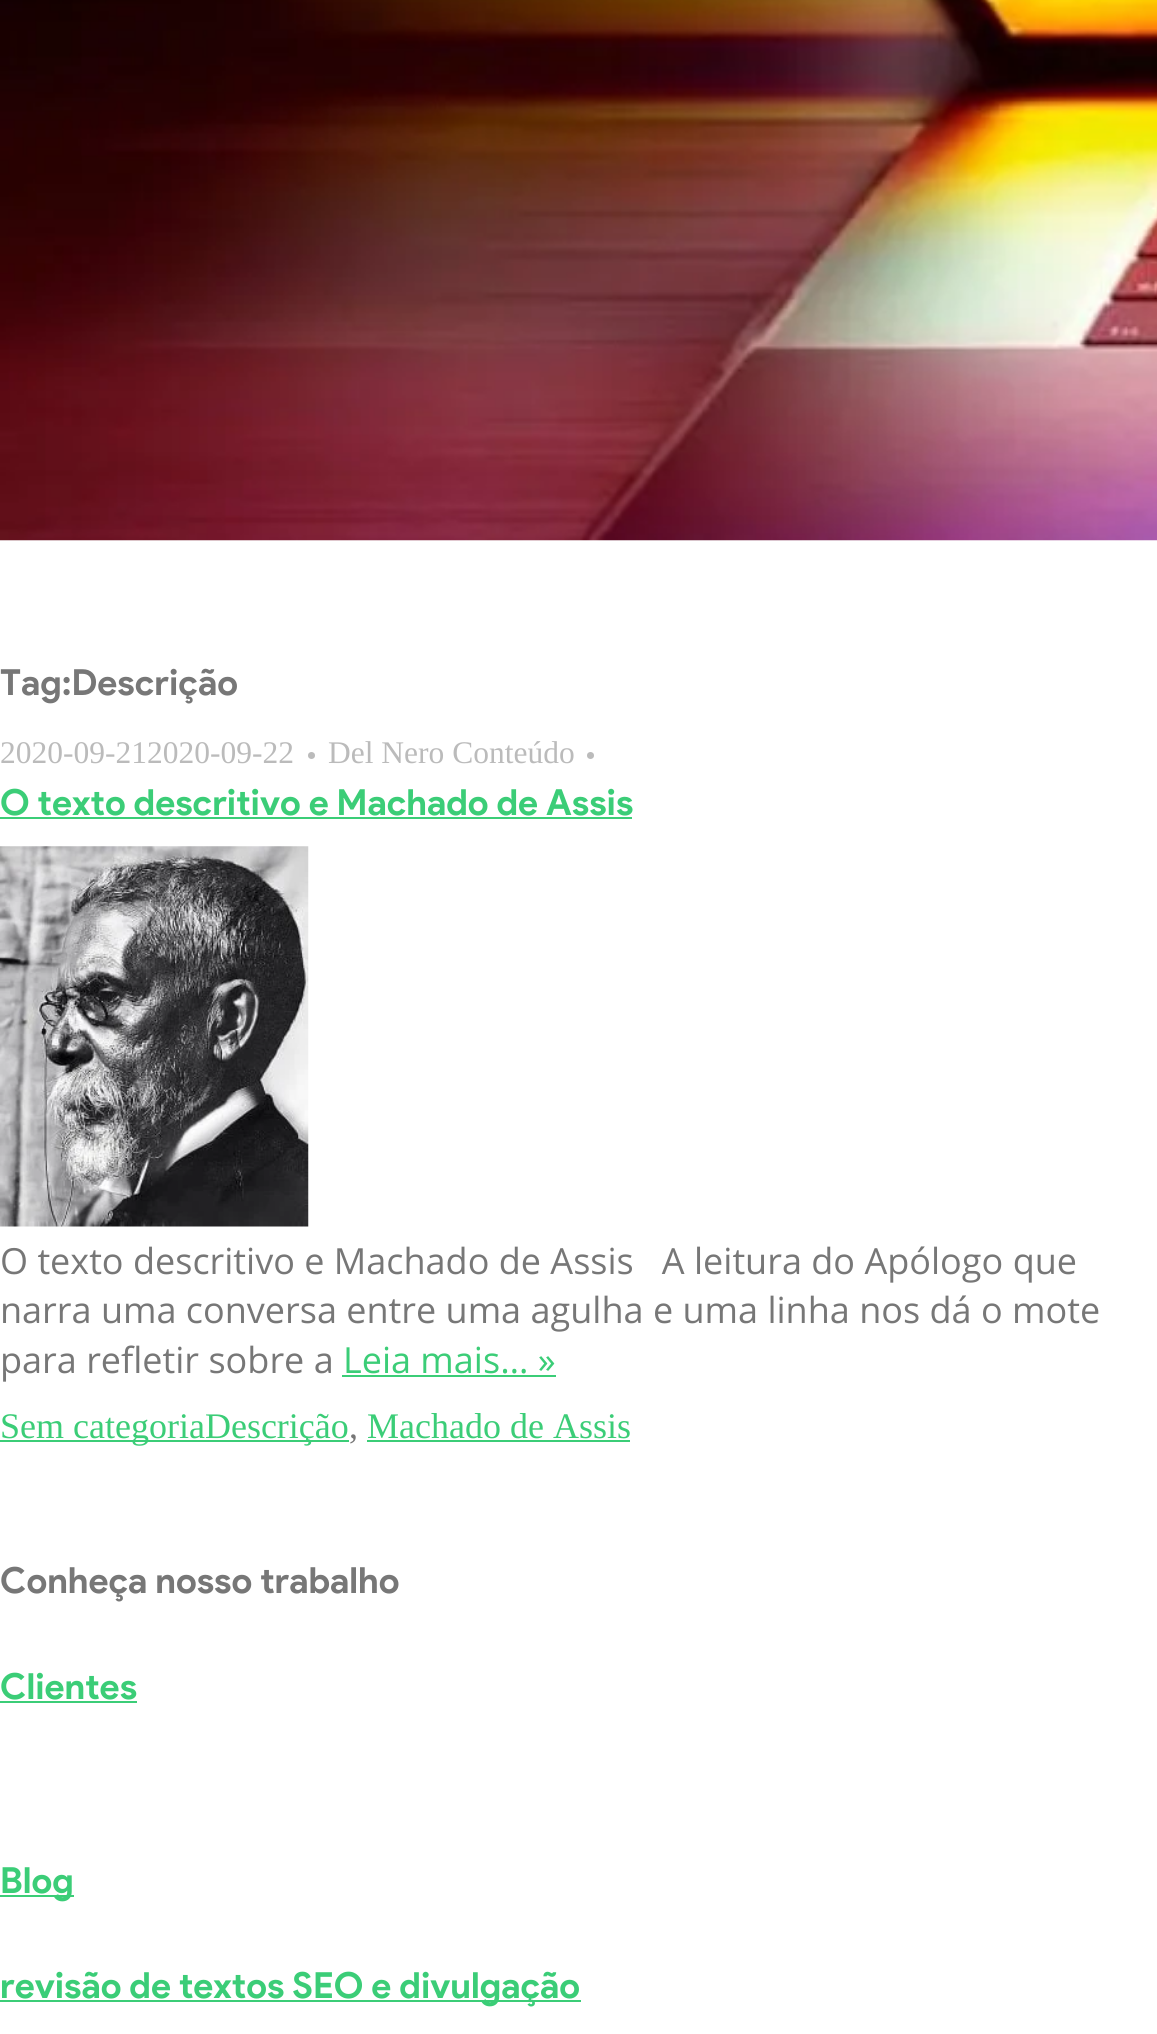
import math
import cairocffi as cairo

surface = cairo.ImageSurface(cairo.FORMAT_RGB24, 1157, 2034)
cr = cairo.Context(surface)
options = cairo.FontOptions()
options.set_hint_metrics(cairo.HINT_METRICS_OFF)
options.set_hint_style(cairo.HINT_STYLE_NONE)
cr.set_font_options(options)
cr.set_miter_limit(4)


def use_color(code):
    cr.set_source_rgb(*(v / 255 for v in bytes.fromhex(code[-6:])))


def picture(path, x, y, w, h):
    cr.save()
    cr.set_source_surface(cairo.ImageSurface.create_from_png(path), x, y)
    cr.rectangle(x, y, w, h)
    cr.fill()
    cr.restore()


use_color("#ffffff")
cr.paint()
picture("img1.png", 0, 0, 1157, 541)
cr.select_font_face("Product Sans", cairo.FONT_SLANT_NORMAL, cairo.FONT_WEIGHT_BOLD)
cr.set_font_size(36)
use_color("#777777")
cr.move_to(0, 695)
cr.show_text("Tag:Descrição")
cr.select_font_face("Liberation Serif")
cr.set_font_size(31.5)
use_color("#bbbbbb")
cr.move_to(0, 763)
cr.show_text("2020-09-212020-09-22")
cr.new_path()
cr.arc(311.5, 755.5, 3.5, 0, 2 * math.pi)
cr.fill()
cr.move_to(328, 763)
cr.show_text("Del Nero Conteúdo")
cr.new_path()
cr.arc(590.5, 755.5, 3.5, 0, 2 * math.pi)
cr.fill()
cr.select_font_face("Product Sans", cairo.FONT_SLANT_NORMAL, cairo.FONT_WEIGHT_BOLD)
cr.set_font_size(36)
use_color("#3bcd77")
cr.move_to(0, 815)
cr.show_text("O texto descritivo e Machado de Assis")
cr.rectangle(0, 817, 632, 2)
cr.fill()
picture("img2.png", 0, 846, 309, 381)
cr.select_font_face("Open Sans")
use_color("#777777")
cr.move_to(0, 1274)
cr.show_text("O texto descritivo e Machado de Assis   A leitura do Apólogo que")
cr.move_to(0, 1323)
cr.show_text("narra uma conversa entre uma agulha e uma linha nos dá o mote")
cr.move_to(0, 1373)
cr.show_text("para refletir sobre a")
use_color("#3bcd77")
cr.move_to(343, 1373)
cr.show_text("Leia mais… »")
cr.rectangle(342, 1375, 214, 2)
cr.fill()
cr.rectangle(0, 1440, 349, 2)
cr.fill()
cr.select_font_face("Liberation Serif")
cr.move_to(0, 1438)
cr.show_text("Sem categoriaDescrição")
use_color("#777777")
cr.move_to(349, 1438)
cr.show_text(",")
use_color("#3bcd77")
cr.rectangle(367, 1440, 263, 2)
cr.fill()
cr.move_to(367, 1438)
cr.show_text("Machado de Assis")
cr.select_font_face("Product Sans", cairo.FONT_SLANT_NORMAL, cairo.FONT_WEIGHT_BOLD)
use_color("#777777")
cr.move_to(0, 1593)
cr.show_text("Conheça nosso trabalho")
use_color("#3bcd77")
cr.move_to(0, 1699)
cr.show_text("Clientes")
cr.rectangle(0, 1701, 137, 2)
cr.fill()
cr.rectangle(0, 1895, 74, 2)
cr.fill()
cr.move_to(0, 1893)
cr.show_text("Blog")
cr.rectangle(0, 2000, 581, 2)
cr.fill()
cr.move_to(0, 1998)
cr.show_text("revisão de textos SEO e divulgação")
surface.write_to_png("result.png")
